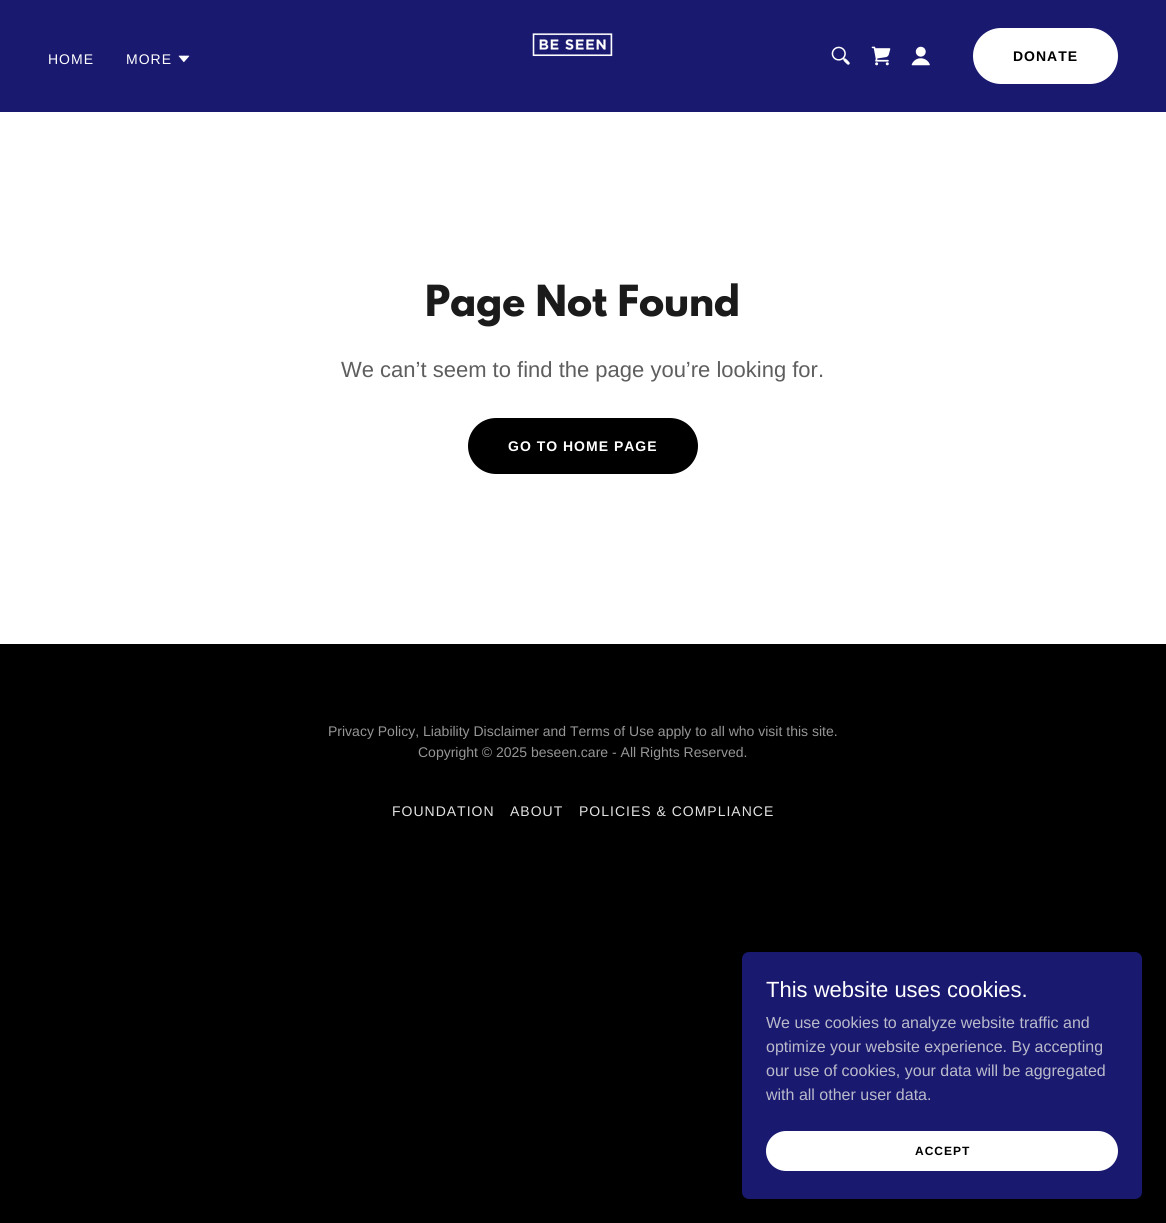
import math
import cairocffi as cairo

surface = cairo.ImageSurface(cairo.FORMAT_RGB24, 1166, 1223)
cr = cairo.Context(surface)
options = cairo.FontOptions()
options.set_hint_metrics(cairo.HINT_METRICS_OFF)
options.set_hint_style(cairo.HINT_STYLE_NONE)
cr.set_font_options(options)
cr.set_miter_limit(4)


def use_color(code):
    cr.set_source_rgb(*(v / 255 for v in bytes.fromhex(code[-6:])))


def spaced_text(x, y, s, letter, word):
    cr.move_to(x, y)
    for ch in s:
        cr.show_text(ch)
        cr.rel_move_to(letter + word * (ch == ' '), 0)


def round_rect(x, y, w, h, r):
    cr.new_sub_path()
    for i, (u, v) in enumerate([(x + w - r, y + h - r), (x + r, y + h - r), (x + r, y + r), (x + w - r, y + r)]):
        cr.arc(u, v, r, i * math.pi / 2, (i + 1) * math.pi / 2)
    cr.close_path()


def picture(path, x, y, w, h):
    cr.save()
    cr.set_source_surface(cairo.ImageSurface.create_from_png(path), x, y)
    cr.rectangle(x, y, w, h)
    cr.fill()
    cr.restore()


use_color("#000000")
cr.paint()
use_color("#191970")
cr.rectangle(0, 0, 1166, 112)
cr.fill()
cr.select_font_face("Liberation Sans")
cr.set_font_size(14)
use_color("#ffffff")
spaced_text(48, 64, "HOME", 1, 0)
spaced_text(126, 64, "MORE", 1, 0)
picture("img1.png", 178, 55, 12, 8)
picture("img2.png", 532, 33, 81, 24)
picture("img3.png", 831, 46, 19, 19)
picture("img4.png", 871, 46, 20, 20)
picture("img5.png", 911, 46, 19, 20)
round_rect(973, 28, 145, 56, 28)
cr.fill()
cr.select_font_face("Liberation Sans", cairo.FONT_SLANT_NORMAL, cairo.FONT_WEIGHT_BOLD)
use_color("#000000")
spaced_text(1013, 61, "DONATE", 1, 0)
use_color("#ffffff")
cr.rectangle(0, 112, 1166, 532)
cr.fill()
cr.select_font_face("League Spartan", cairo.FONT_SLANT_NORMAL, cairo.FONT_WEIGHT_BOLD)
cr.set_font_size(38)
use_color("#1b1b1b")
cr.move_to(425, 316)
cr.show_text("Page Not Found")
cr.select_font_face("Liberation Sans")
cr.set_font_size(22)
use_color("#5e5e5e")
cr.move_to(341, 377)
cr.show_text("We can’t seem to find the page you’re looking for.")
use_color("#000000")
round_rect(468, 418, 230, 56, 28)
cr.fill()
cr.select_font_face("Liberation Sans", cairo.FONT_SLANT_NORMAL, cairo.FONT_WEIGHT_BOLD)
cr.set_font_size(14)
use_color("#ffffff")
spaced_text(508, 451, "GO TO HOME PAGE", 1, 0)
cr.select_font_face("Liberation Sans")
use_color("#969696")
cr.move_to(328, 736)
cr.show_text("Privacy Policy, Liability Disclaimer and Terms of Use apply to all who visit this site.")
cr.move_to(418, 757)
cr.show_text("Copyright © 2025 beseen.care - All Rights Reserved.")
use_color("#e2e2e2")
spaced_text(392, 816, "FOUNDATION", 1, 0)
spaced_text(510, 816, "ABOUT", 1, 0)
spaced_text(579, 816, "POLICIES & COMPLIANCE", 1, 0)
use_color("#191970")
round_rect(742, 952, 400, 247, 7)
cr.fill()
cr.set_font_size(22)
use_color("#ffffff")
cr.move_to(766, 997)
cr.show_text("This website uses cookies.")
cr.set_font_size(16)
use_color("#babacb")
cr.move_to(766, 1028)
cr.show_text("We use cookies to analyze website traffic and")
cr.move_to(766, 1052)
cr.show_text("optimize your website experience. By accepting")
cr.move_to(766, 1076)
cr.show_text("our use of cookies, your data will be aggregated")
cr.move_to(766, 1100)
cr.show_text("with all other user data.")
use_color("#ffffff")
round_rect(766, 1131, 352, 40, 20)
cr.fill()
cr.select_font_face("Liberation Sans", cairo.FONT_SLANT_NORMAL, cairo.FONT_WEIGHT_BOLD)
cr.set_font_size(12)
use_color("#000000")
spaced_text(915, 1155, "ACCEPT", 1, 0)
surface.write_to_png("result.png")
